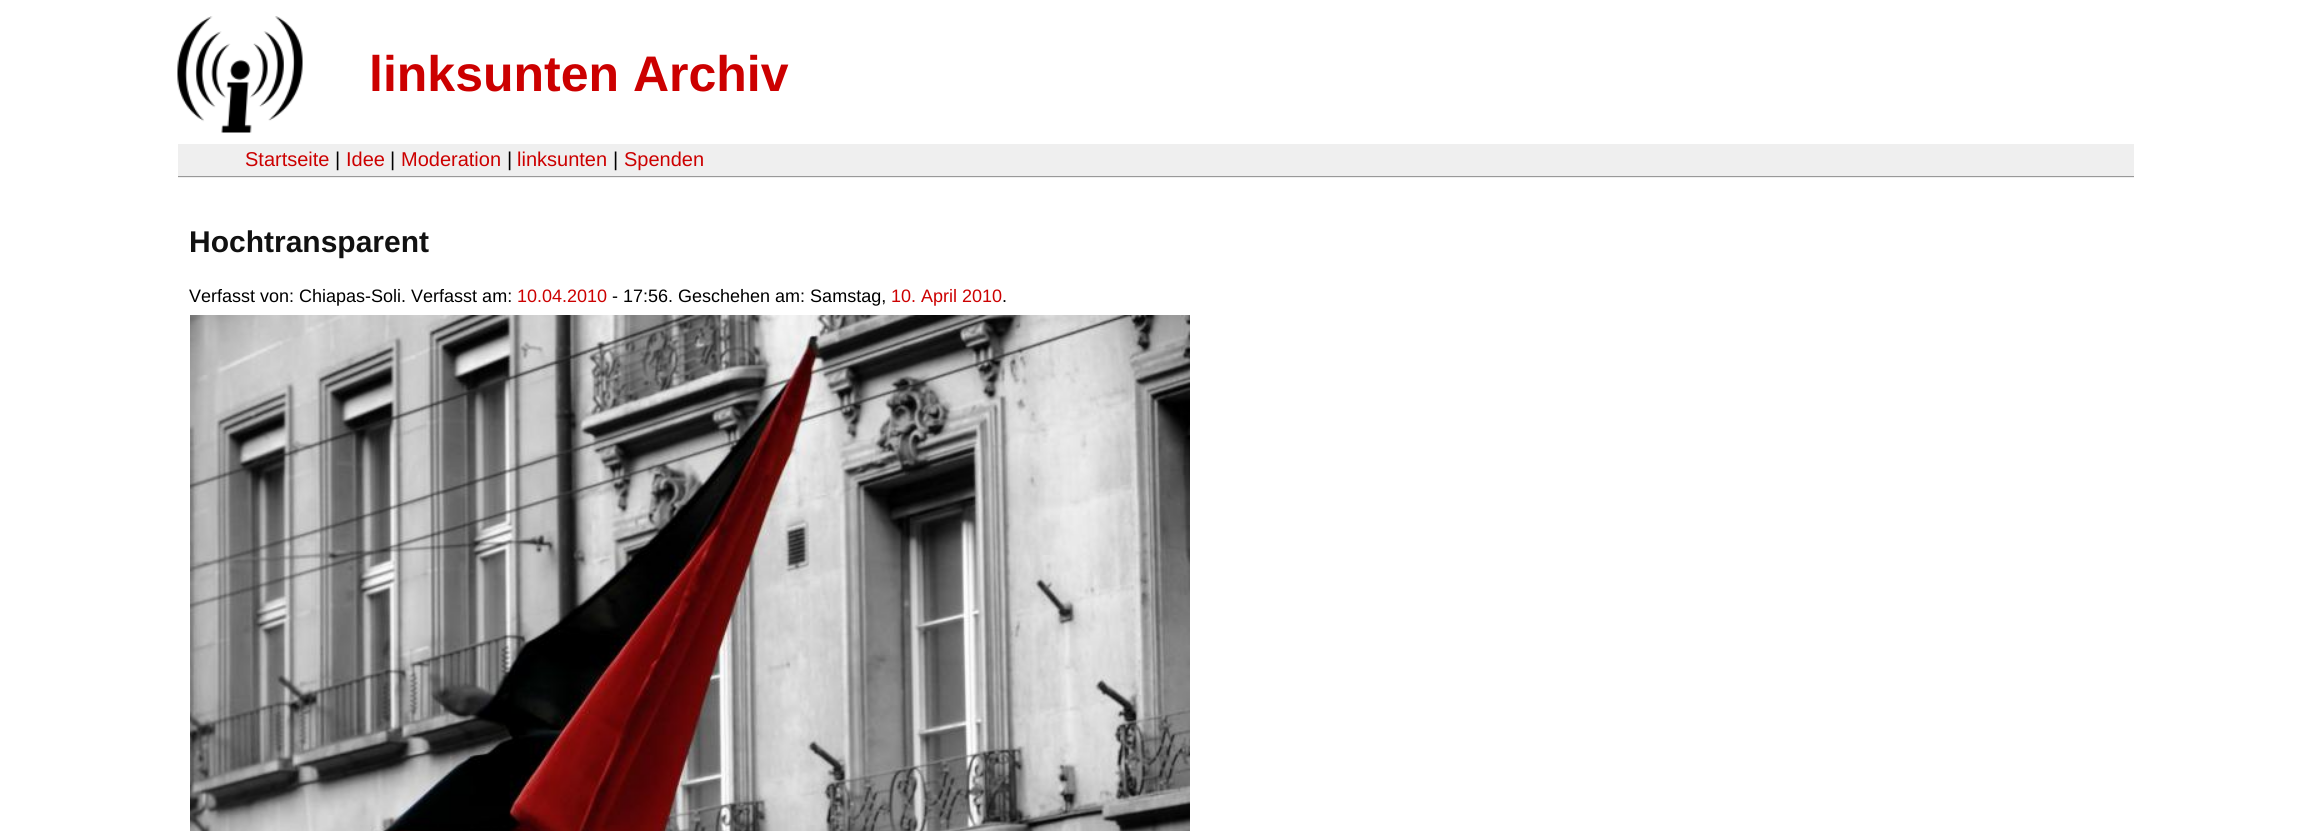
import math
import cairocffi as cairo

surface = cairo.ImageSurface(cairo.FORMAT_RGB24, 2311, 831)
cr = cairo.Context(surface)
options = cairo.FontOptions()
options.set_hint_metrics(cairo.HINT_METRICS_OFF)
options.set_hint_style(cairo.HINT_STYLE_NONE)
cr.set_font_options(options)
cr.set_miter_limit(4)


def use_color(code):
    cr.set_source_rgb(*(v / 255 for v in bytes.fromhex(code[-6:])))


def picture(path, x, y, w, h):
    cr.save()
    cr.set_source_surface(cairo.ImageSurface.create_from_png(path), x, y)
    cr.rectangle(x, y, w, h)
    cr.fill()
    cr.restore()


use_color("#ffffff")
cr.paint()
picture("img1.png", 177, 16, 126, 117)
cr.select_font_face("Liberation Sans", cairo.FONT_SLANT_NORMAL, cairo.FONT_WEIGHT_BOLD)
cr.set_font_size(50)
use_color("#cc0000")
cr.move_to(369, 91)
cr.show_text("linksunten Archiv")
use_color("#efefef")
cr.rectangle(178, 144, 1956, 34)
cr.fill()
use_color("#999999")
cr.rectangle(178, 176, 1956, 1)
cr.fill()
cr.select_font_face("Liberation Sans")
cr.set_font_size(20)
use_color("#cc0000")
cr.move_to(245, 166)
cr.show_text("Startseite")
use_color("#000000")
cr.move_to(335, 166)
cr.show_text("|")
use_color("#cc0000")
cr.move_to(346, 166)
cr.show_text("Idee")
use_color("#000000")
cr.move_to(390, 166)
cr.show_text("|")
use_color("#cc0000")
cr.move_to(401, 166)
cr.show_text("Moderation")
use_color("#000000")
cr.move_to(507, 166)
cr.show_text("|")
use_color("#cc0000")
cr.move_to(517, 166)
cr.show_text("linksunten")
use_color("#000000")
cr.move_to(613, 166)
cr.show_text("|")
use_color("#cc0000")
cr.move_to(624, 166)
cr.show_text("Spenden")
cr.select_font_face("Liberation Sans", cairo.FONT_SLANT_NORMAL, cairo.FONT_WEIGHT_BOLD)
cr.set_font_size(30)
use_color("#111111")
cr.move_to(189, 252)
cr.show_text("Hochtransparent")
cr.select_font_face("Liberation Sans")
cr.set_font_size(18)
use_color("#000000")
cr.move_to(189, 302)
cr.show_text("Verfasst von: Chiapas-Soli. Verfasst am:")
use_color("#cc0000")
cr.move_to(517, 302)
cr.show_text("10.04.2010")
use_color("#000000")
cr.move_to(612, 302)
cr.show_text("- 17:56. Geschehen am: Samstag,")
use_color("#cc0000")
cr.move_to(891, 302)
cr.show_text("10. April 2010")
use_color("#000000")
cr.move_to(1002, 302)
cr.show_text(".")
picture("img2.png", 190, 315, 1000, 516)
surface.write_to_png("result.png")
